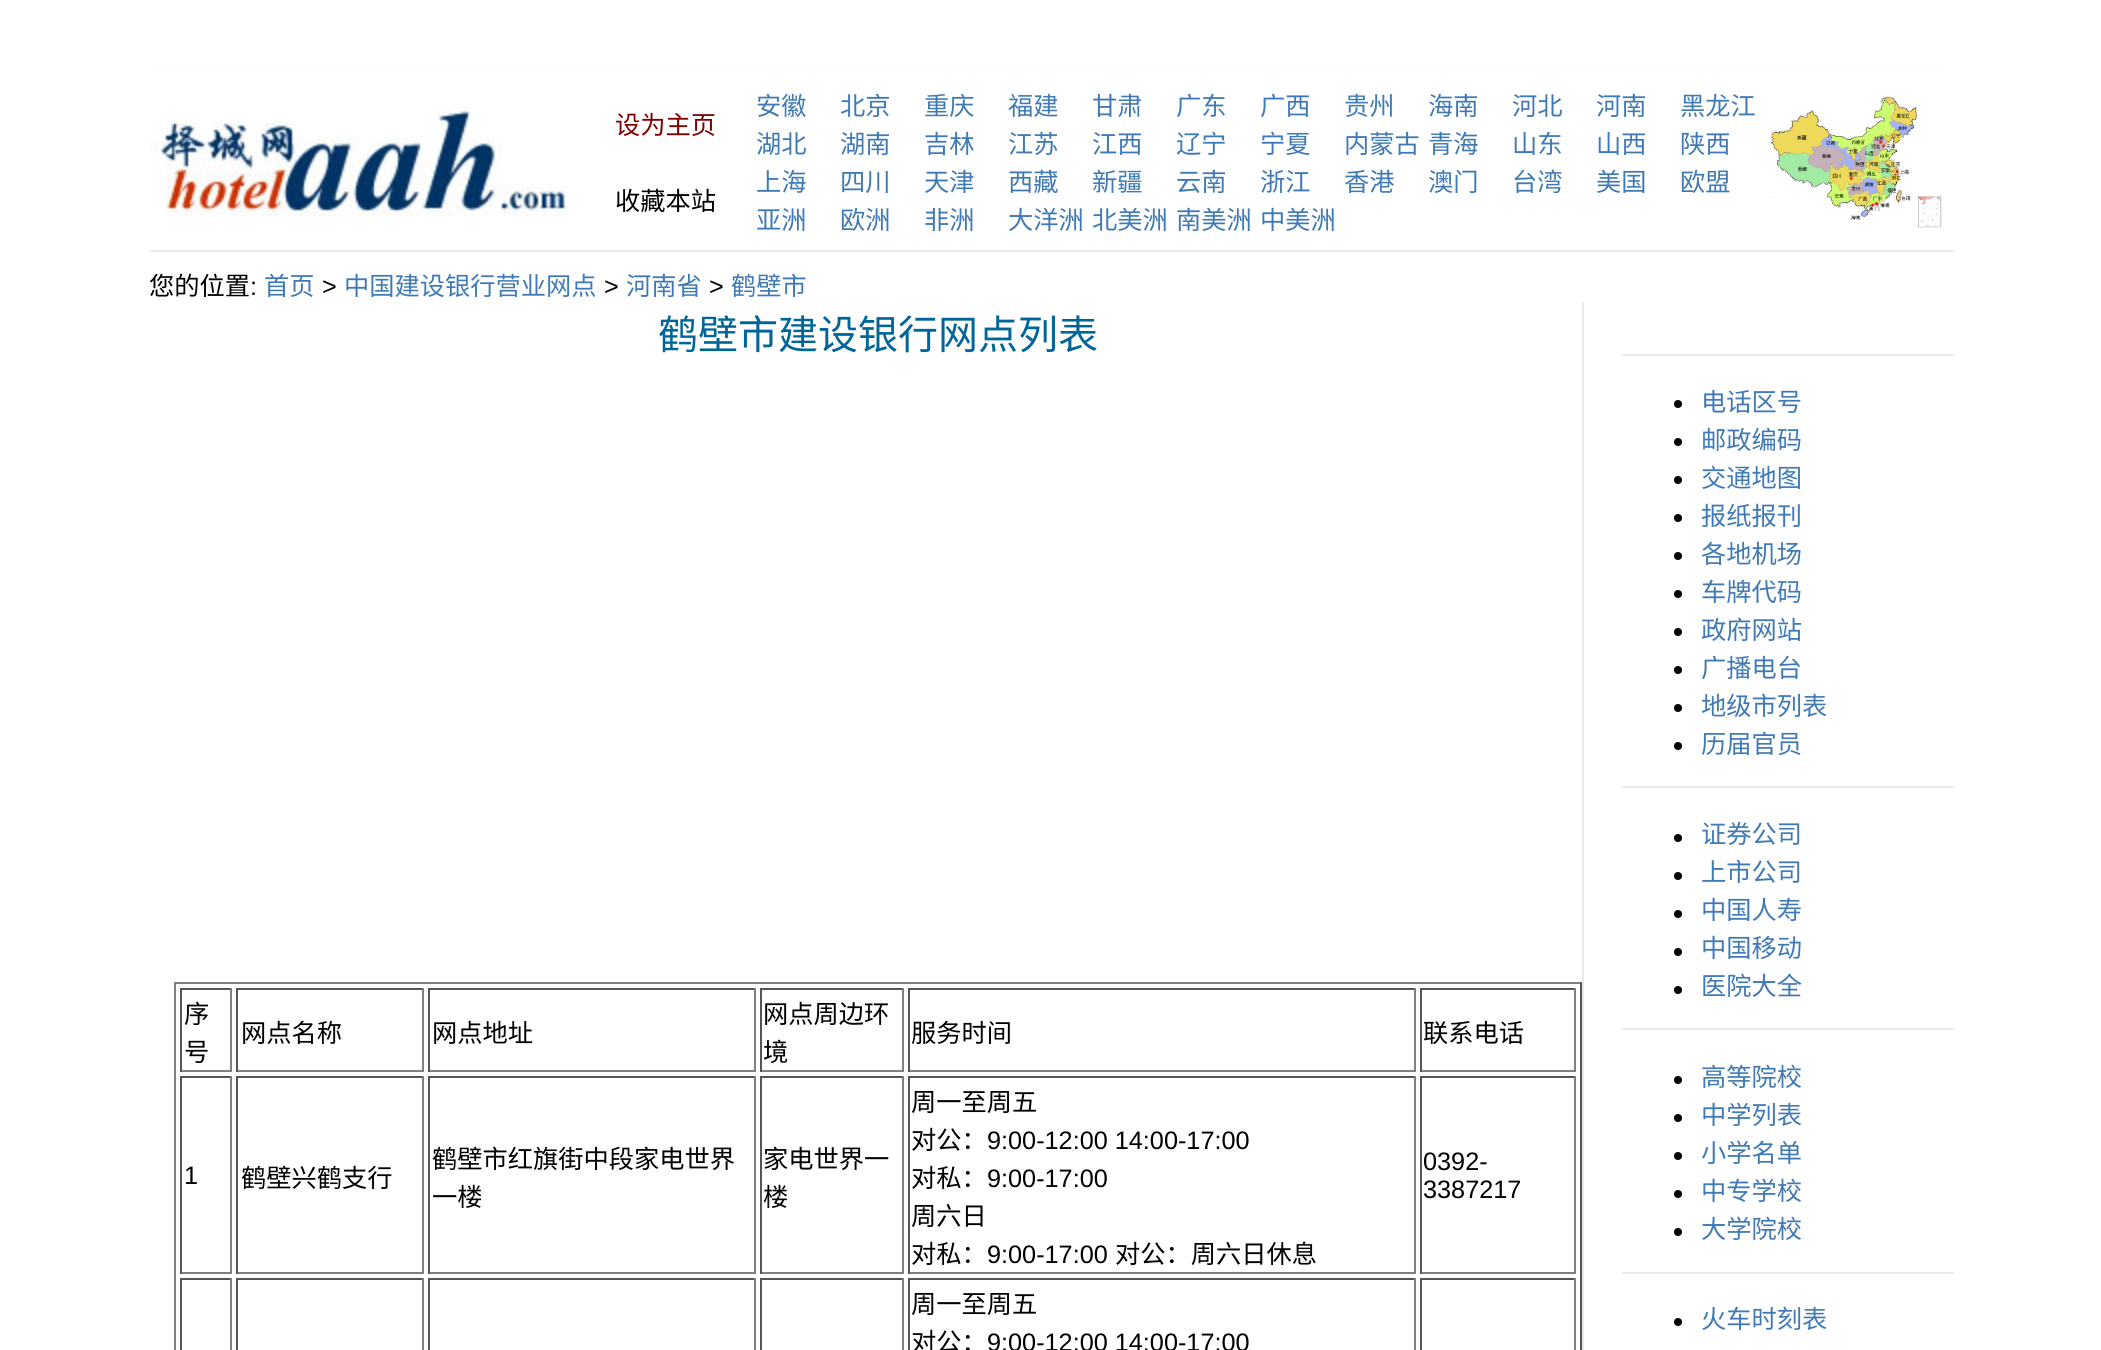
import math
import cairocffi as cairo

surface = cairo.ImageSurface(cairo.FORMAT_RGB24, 2101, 1350)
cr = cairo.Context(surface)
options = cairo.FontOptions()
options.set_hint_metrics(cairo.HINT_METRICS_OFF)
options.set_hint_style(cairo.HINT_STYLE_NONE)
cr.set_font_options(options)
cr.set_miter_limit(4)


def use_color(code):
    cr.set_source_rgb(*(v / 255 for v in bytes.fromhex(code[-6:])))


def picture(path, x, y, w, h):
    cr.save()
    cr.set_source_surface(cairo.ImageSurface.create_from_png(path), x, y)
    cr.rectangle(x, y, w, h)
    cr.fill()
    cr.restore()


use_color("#ffffff")
cr.paint()
use_color("#fcfcfc")
cr.rectangle(150, 70, 1792, 2)
cr.fill()
picture("img1.png", 150, 106, 417, 110)
cr.select_font_face("Noto Sans CJK SC")
cr.set_font_size(25.25)
use_color("#800000")
cr.move_to(615, 134)
cr.show_text("设为主页")
use_color("#000000")
cr.move_to(615, 210)
cr.show_text("收藏本站")
use_color("#407ab6")
cr.move_to(756, 115)
cr.show_text("安徽")
cr.move_to(840, 115)
cr.show_text("北京")
cr.move_to(924, 115)
cr.show_text("重庆")
cr.move_to(1008, 115)
cr.show_text("福建")
cr.move_to(1092, 115)
cr.show_text("甘肃")
cr.move_to(1176, 115)
cr.show_text("广东")
cr.move_to(1260, 115)
cr.show_text("广西")
cr.move_to(1344, 115)
cr.show_text("贵州")
cr.move_to(1428, 115)
cr.show_text("海南")
cr.move_to(1512, 115)
cr.show_text("河北")
cr.move_to(1596, 115)
cr.show_text("河南")
cr.move_to(1680, 115)
cr.show_text("黑龙江")
cr.move_to(756, 153)
cr.show_text("湖北")
cr.move_to(840, 153)
cr.show_text("湖南")
cr.move_to(924, 153)
cr.show_text("吉林")
cr.move_to(1008, 153)
cr.show_text("江苏")
cr.move_to(1092, 153)
cr.show_text("江西")
cr.move_to(1176, 153)
cr.show_text("辽宁")
cr.move_to(1260, 153)
cr.show_text("宁夏")
cr.move_to(1344, 153)
cr.show_text("内蒙古")
cr.move_to(1428, 153)
cr.show_text("青海")
cr.move_to(1512, 153)
cr.show_text("山东")
cr.move_to(1596, 153)
cr.show_text("山西")
cr.move_to(1680, 153)
cr.show_text("陕西")
cr.move_to(756, 191)
cr.show_text("上海")
cr.move_to(840, 191)
cr.show_text("四川")
cr.move_to(924, 191)
cr.show_text("天津")
cr.move_to(1008, 191)
cr.show_text("西藏")
cr.move_to(1092, 191)
cr.show_text("新疆")
cr.move_to(1176, 191)
cr.show_text("云南")
cr.move_to(1260, 191)
cr.show_text("浙江")
cr.move_to(1344, 191)
cr.show_text("香港")
cr.move_to(1428, 191)
cr.show_text("澳门")
cr.move_to(1512, 191)
cr.show_text("台湾")
cr.move_to(1596, 191)
cr.show_text("美国")
cr.move_to(1680, 191)
cr.show_text("欧盟")
cr.move_to(756, 229)
cr.show_text("亚洲")
cr.move_to(840, 229)
cr.show_text("欧洲")
cr.move_to(924, 229)
cr.show_text("非洲")
cr.move_to(1008, 229)
cr.show_text("大洋洲")
cr.move_to(1092, 229)
cr.show_text("北美洲")
cr.move_to(1176, 229)
cr.show_text("南美洲")
cr.move_to(1260, 229)
cr.show_text("中美洲")
picture("img2.png", 1770, 96, 172, 132)
use_color("#eaeaea")
cr.rectangle(150, 250, 1804, 2)
cr.fill()
use_color("#000000")
cr.move_to(149, 295)
cr.show_text("您的位置")
cr.select_font_face("Liberation Sans")
cr.move_to(250, 295)
cr.show_text(":")
cr.select_font_face("Noto Sans CJK SC")
use_color("#407ab6")
cr.move_to(264, 295)
cr.show_text("首页")
cr.select_font_face("Liberation Sans")
use_color("#000000")
cr.move_to(322, 295)
cr.show_text(">")
cr.select_font_face("Noto Sans CJK SC")
use_color("#407ab6")
cr.move_to(344, 295)
cr.show_text("中国建设银行营业网点")
cr.select_font_face("Liberation Sans")
use_color("#000000")
cr.move_to(604, 295)
cr.show_text(">")
cr.select_font_face("Noto Sans CJK SC")
use_color("#407ab6")
cr.move_to(626, 295)
cr.show_text("河南省")
cr.select_font_face("Liberation Sans")
use_color("#000000")
cr.move_to(709, 295)
cr.show_text(">")
cr.select_font_face("Noto Sans CJK SC")
use_color("#407ab6")
cr.move_to(731, 295)
cr.show_text("鹤壁市")
cr.set_font_size(40)
use_color("#006699")
cr.move_to(658, 349)
cr.show_text("鹤壁市建设银行网点列表")
use_color("#808080")
cr.rectangle(174, 982, 1408, 2)
cr.fill()
use_color("#555555")
cr.rectangle(1580, 982, 2, 368)
cr.fill()
use_color("#808080")
cr.rectangle(174, 982, 2, 368)
cr.fill()
use_color("#555555")
cr.rectangle(180, 988, 52, 2)
cr.fill()
use_color("#808080")
cr.rectangle(230, 988, 2, 84)
cr.fill()
cr.rectangle(180, 1070, 52, 2)
cr.fill()
use_color("#555555")
cr.rectangle(180, 988, 2, 84)
cr.fill()
cr.set_font_size(25.25)
use_color("#000000")
cr.move_to(184, 1023)
cr.show_text("序")
cr.move_to(184, 1061)
cr.show_text("号")
use_color("#555555")
cr.rectangle(236, 988, 188, 2)
cr.fill()
use_color("#808080")
cr.rectangle(422, 988, 2, 84)
cr.fill()
cr.rectangle(236, 1070, 188, 2)
cr.fill()
use_color("#555555")
cr.rectangle(236, 988, 2, 84)
cr.fill()
use_color("#000000")
cr.move_to(241, 1042)
cr.show_text("网点名称")
use_color("#555555")
cr.rectangle(428, 988, 328, 2)
cr.fill()
use_color("#808080")
cr.rectangle(754, 988, 2, 84)
cr.fill()
cr.rectangle(428, 1070, 328, 2)
cr.fill()
use_color("#555555")
cr.rectangle(428, 988, 2, 84)
cr.fill()
use_color("#000000")
cr.move_to(432, 1042)
cr.show_text("网点地址")
use_color("#555555")
cr.rectangle(760, 988, 144, 2)
cr.fill()
use_color("#808080")
cr.rectangle(902, 988, 2, 84)
cr.fill()
cr.rectangle(760, 1070, 144, 2)
cr.fill()
use_color("#555555")
cr.rectangle(760, 988, 2, 84)
cr.fill()
use_color("#000000")
cr.move_to(763, 1023)
cr.show_text("网点周边环")
cr.move_to(763, 1061)
cr.show_text("境")
use_color("#555555")
cr.rectangle(908, 988, 508, 2)
cr.fill()
use_color("#808080")
cr.rectangle(1414, 988, 2, 84)
cr.fill()
cr.rectangle(908, 1070, 508, 2)
cr.fill()
use_color("#555555")
cr.rectangle(908, 988, 2, 84)
cr.fill()
use_color("#000000")
cr.move_to(911, 1042)
cr.show_text("服务时间")
use_color("#555555")
cr.rectangle(1420, 988, 156, 2)
cr.fill()
use_color("#808080")
cr.rectangle(1574, 988, 2, 84)
cr.fill()
cr.rectangle(1420, 1070, 156, 2)
cr.fill()
use_color("#555555")
cr.rectangle(1420, 988, 2, 84)
cr.fill()
use_color("#000000")
cr.move_to(1423, 1042)
cr.show_text("联系电话")
use_color("#555555")
cr.rectangle(180, 1076, 52, 2)
cr.fill()
use_color("#808080")
cr.rectangle(230, 1076, 2, 198)
cr.fill()
cr.rectangle(180, 1272, 52, 2)
cr.fill()
use_color("#555555")
cr.rectangle(180, 1076, 2, 198)
cr.fill()
cr.select_font_face("Liberation Sans")
use_color("#000000")
cr.move_to(184, 1184)
cr.show_text("1")
use_color("#555555")
cr.rectangle(236, 1076, 188, 2)
cr.fill()
use_color("#808080")
cr.rectangle(422, 1076, 2, 198)
cr.fill()
cr.rectangle(236, 1272, 188, 2)
cr.fill()
use_color("#555555")
cr.rectangle(236, 1076, 2, 198)
cr.fill()
cr.select_font_face("Noto Sans CJK SC")
use_color("#000000")
cr.move_to(241, 1187)
cr.show_text("鹤壁兴鹤支行")
use_color("#555555")
cr.rectangle(428, 1076, 328, 2)
cr.fill()
use_color("#808080")
cr.rectangle(754, 1076, 2, 198)
cr.fill()
cr.rectangle(428, 1272, 328, 2)
cr.fill()
use_color("#555555")
cr.rectangle(428, 1076, 2, 198)
cr.fill()
use_color("#000000")
cr.move_to(432, 1168)
cr.show_text("鹤壁市红旗街中段家电世界")
cr.move_to(432, 1206)
cr.show_text("一楼")
use_color("#555555")
cr.rectangle(760, 1076, 144, 2)
cr.fill()
use_color("#808080")
cr.rectangle(902, 1076, 2, 198)
cr.fill()
cr.rectangle(760, 1272, 144, 2)
cr.fill()
use_color("#555555")
cr.rectangle(760, 1076, 2, 198)
cr.fill()
use_color("#000000")
cr.move_to(763, 1168)
cr.show_text("家电世界一")
cr.move_to(763, 1206)
cr.show_text("楼")
use_color("#555555")
cr.rectangle(908, 1076, 508, 2)
cr.fill()
use_color("#808080")
cr.rectangle(1414, 1076, 2, 198)
cr.fill()
cr.rectangle(908, 1272, 508, 2)
cr.fill()
use_color("#555555")
cr.rectangle(908, 1076, 2, 198)
cr.fill()
use_color("#000000")
cr.move_to(911, 1111)
cr.show_text("周一至周五")
cr.move_to(911, 1149)
cr.show_text("对公：")
cr.select_font_face("Liberation Sans")
cr.move_to(987, 1149)
cr.show_text("9:00-12:00 14:00-17:00")
cr.select_font_face("Noto Sans CJK SC")
cr.move_to(911, 1187)
cr.show_text("对私：")
cr.select_font_face("Liberation Sans")
cr.move_to(987, 1187)
cr.show_text("9:00-17:00")
cr.select_font_face("Noto Sans CJK SC")
cr.move_to(911, 1225)
cr.show_text("周六日")
cr.move_to(911, 1263)
cr.show_text("对私：")
cr.select_font_face("Liberation Sans")
cr.move_to(987, 1263)
cr.show_text("9:00-17:00")
cr.select_font_face("Noto Sans CJK SC")
cr.move_to(1115, 1263)
cr.show_text("对公：周六日休息")
use_color("#555555")
cr.rectangle(1420, 1076, 156, 2)
cr.fill()
use_color("#808080")
cr.rectangle(1574, 1076, 2, 198)
cr.fill()
cr.rectangle(1420, 1272, 156, 2)
cr.fill()
use_color("#555555")
cr.rectangle(1420, 1076, 2, 198)
cr.fill()
cr.select_font_face("Liberation Sans")
use_color("#000000")
cr.move_to(1423, 1170)
cr.show_text("0392-")
cr.move_to(1423, 1198)
cr.show_text("3387217")
use_color("#555555")
cr.rectangle(180, 1278, 52, 2)
cr.fill()
use_color("#808080")
cr.rectangle(230, 1278, 2, 72)
cr.fill()
use_color("#555555")
cr.rectangle(180, 1278, 2, 72)
cr.fill()
cr.rectangle(236, 1278, 188, 2)
cr.fill()
use_color("#808080")
cr.rectangle(422, 1278, 2, 72)
cr.fill()
use_color("#555555")
cr.rectangle(236, 1278, 2, 72)
cr.fill()
cr.rectangle(428, 1278, 328, 2)
cr.fill()
use_color("#808080")
cr.rectangle(754, 1278, 2, 72)
cr.fill()
use_color("#555555")
cr.rectangle(428, 1278, 2, 72)
cr.fill()
cr.rectangle(760, 1278, 144, 2)
cr.fill()
use_color("#808080")
cr.rectangle(902, 1278, 2, 72)
cr.fill()
use_color("#555555")
cr.rectangle(760, 1278, 2, 72)
cr.fill()
cr.rectangle(908, 1278, 508, 2)
cr.fill()
use_color("#808080")
cr.rectangle(1414, 1278, 2, 72)
cr.fill()
use_color("#555555")
cr.rectangle(908, 1278, 2, 72)
cr.fill()
cr.select_font_face("Noto Sans CJK SC")
use_color("#000000")
cr.move_to(911, 1313)
cr.show_text("周一至周五")
cr.move_to(911, 1351)
cr.show_text("对公：")
cr.select_font_face("Liberation Sans")
cr.move_to(987, 1351)
cr.show_text("9:00-12:00 14:00-17:00")
use_color("#555555")
cr.rectangle(1420, 1278, 156, 2)
cr.fill()
use_color("#808080")
cr.rectangle(1574, 1278, 2, 72)
cr.fill()
use_color("#555555")
cr.rectangle(1420, 1278, 2, 72)
cr.fill()
use_color("#eaeaea")
cr.rectangle(1582, 302, 2, 1048)
cr.fill()
cr.rectangle(1622, 354, 332, 2)
cr.fill()
use_color("#000000")
cr.arc(1678, 404, 4, 0, 2 * math.pi)
cr.fill()
cr.select_font_face("Noto Sans CJK SC")
use_color("#407ab6")
cr.move_to(1701, 411)
cr.show_text("电话区号")
use_color("#000000")
cr.new_path()
cr.arc(1678, 442, 4, 0, 2 * math.pi)
cr.fill()
use_color("#407ab6")
cr.move_to(1701, 449)
cr.show_text("邮政编码")
use_color("#000000")
cr.new_path()
cr.arc(1678, 480, 4, 0, 2 * math.pi)
cr.fill()
use_color("#407ab6")
cr.move_to(1701, 487)
cr.show_text("交通地图")
use_color("#000000")
cr.new_path()
cr.arc(1678, 518, 4, 0, 2 * math.pi)
cr.fill()
use_color("#407ab6")
cr.move_to(1701, 525)
cr.show_text("报纸报刊")
use_color("#000000")
cr.new_path()
cr.arc(1678, 556, 4, 0, 2 * math.pi)
cr.fill()
use_color("#407ab6")
cr.move_to(1701, 563)
cr.show_text("各地机场")
use_color("#000000")
cr.new_path()
cr.arc(1678, 594, 4, 0, 2 * math.pi)
cr.fill()
use_color("#407ab6")
cr.move_to(1701, 601)
cr.show_text("车牌代码")
use_color("#000000")
cr.new_path()
cr.arc(1678, 632, 4, 0, 2 * math.pi)
cr.fill()
use_color("#407ab6")
cr.move_to(1701, 639)
cr.show_text("政府网站")
use_color("#000000")
cr.new_path()
cr.arc(1678, 670, 4, 0, 2 * math.pi)
cr.fill()
use_color("#407ab6")
cr.move_to(1701, 677)
cr.show_text("广播电台")
use_color("#000000")
cr.new_path()
cr.arc(1678, 708, 4, 0, 2 * math.pi)
cr.fill()
use_color("#407ab6")
cr.move_to(1701, 715)
cr.show_text("地级市列表")
use_color("#000000")
cr.new_path()
cr.arc(1678, 746, 4, 0, 2 * math.pi)
cr.fill()
use_color("#407ab6")
cr.move_to(1701, 753)
cr.show_text("历届官员")
use_color("#eaeaea")
cr.rectangle(1622, 786, 332, 2)
cr.fill()
use_color("#000000")
cr.arc(1678, 838, 4, 0, 2 * math.pi)
cr.fill()
use_color("#407ab6")
cr.move_to(1701, 843)
cr.show_text("证券公司")
use_color("#000000")
cr.new_path()
cr.arc(1678, 876, 4, 0, 2 * math.pi)
cr.fill()
use_color("#407ab6")
cr.move_to(1701, 881)
cr.show_text("上市公司")
use_color("#000000")
cr.new_path()
cr.arc(1678, 914, 4, 0, 2 * math.pi)
cr.fill()
use_color("#407ab6")
cr.move_to(1701, 919)
cr.show_text("中国人寿")
use_color("#000000")
cr.new_path()
cr.arc(1678, 952, 4, 0, 2 * math.pi)
cr.fill()
use_color("#407ab6")
cr.move_to(1701, 957)
cr.show_text("中国移动")
use_color("#000000")
cr.new_path()
cr.arc(1678, 990, 4, 0, 2 * math.pi)
cr.fill()
use_color("#407ab6")
cr.move_to(1701, 995)
cr.show_text("医院大全")
use_color("#eaeaea")
cr.rectangle(1622, 1028, 332, 2)
cr.fill()
use_color("#000000")
cr.arc(1678, 1080, 4, 0, 2 * math.pi)
cr.fill()
use_color("#407ab6")
cr.move_to(1701, 1086)
cr.show_text("高等院校")
use_color("#000000")
cr.new_path()
cr.arc(1678, 1118, 4, 0, 2 * math.pi)
cr.fill()
use_color("#407ab6")
cr.move_to(1701, 1124)
cr.show_text("中学列表")
use_color("#000000")
cr.new_path()
cr.arc(1678, 1156, 4, 0, 2 * math.pi)
cr.fill()
use_color("#407ab6")
cr.move_to(1701, 1162)
cr.show_text("小学名单")
use_color("#000000")
cr.new_path()
cr.arc(1678, 1194, 4, 0, 2 * math.pi)
cr.fill()
use_color("#407ab6")
cr.move_to(1701, 1200)
cr.show_text("中专学校")
use_color("#000000")
cr.new_path()
cr.arc(1678, 1232, 4, 0, 2 * math.pi)
cr.fill()
use_color("#407ab6")
cr.move_to(1701, 1238)
cr.show_text("大学院校")
use_color("#eaeaea")
cr.rectangle(1622, 1272, 332, 2)
cr.fill()
use_color("#000000")
cr.arc(1678, 1322, 4, 0, 2 * math.pi)
cr.fill()
use_color("#407ab6")
cr.move_to(1701, 1328)
cr.show_text("火车时刻表")
surface.write_to_png("result.png")
